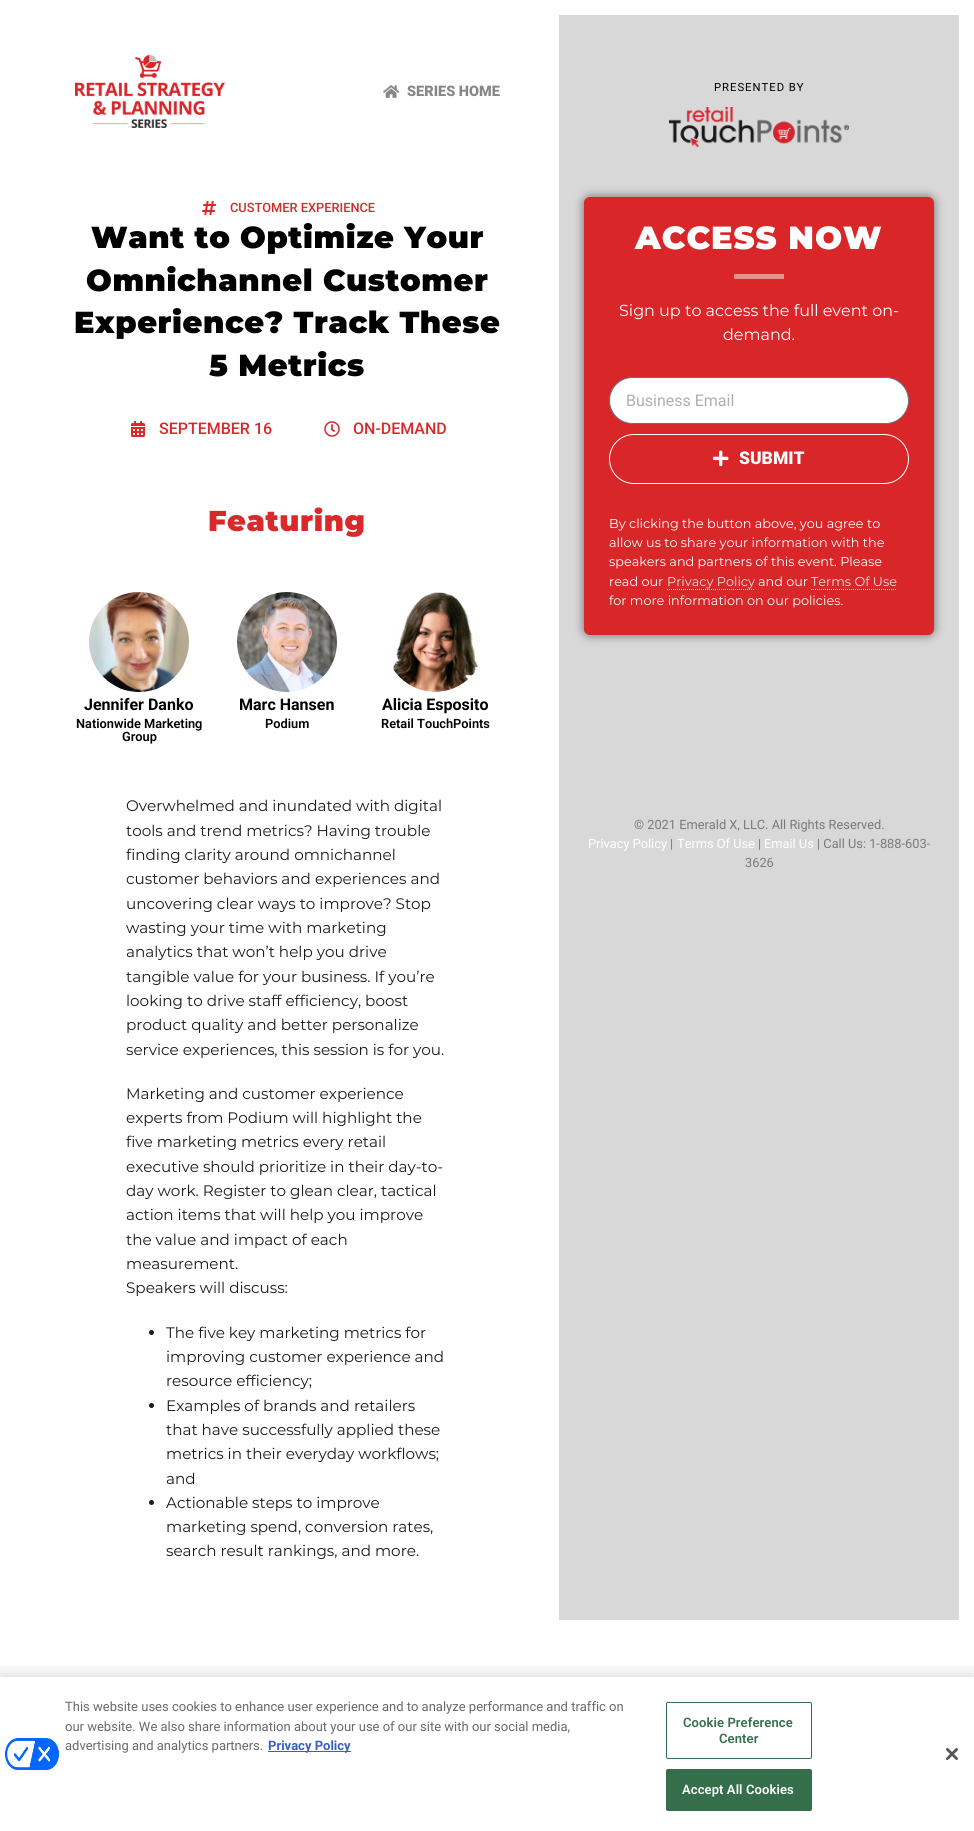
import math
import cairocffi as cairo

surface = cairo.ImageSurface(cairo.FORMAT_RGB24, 974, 1831)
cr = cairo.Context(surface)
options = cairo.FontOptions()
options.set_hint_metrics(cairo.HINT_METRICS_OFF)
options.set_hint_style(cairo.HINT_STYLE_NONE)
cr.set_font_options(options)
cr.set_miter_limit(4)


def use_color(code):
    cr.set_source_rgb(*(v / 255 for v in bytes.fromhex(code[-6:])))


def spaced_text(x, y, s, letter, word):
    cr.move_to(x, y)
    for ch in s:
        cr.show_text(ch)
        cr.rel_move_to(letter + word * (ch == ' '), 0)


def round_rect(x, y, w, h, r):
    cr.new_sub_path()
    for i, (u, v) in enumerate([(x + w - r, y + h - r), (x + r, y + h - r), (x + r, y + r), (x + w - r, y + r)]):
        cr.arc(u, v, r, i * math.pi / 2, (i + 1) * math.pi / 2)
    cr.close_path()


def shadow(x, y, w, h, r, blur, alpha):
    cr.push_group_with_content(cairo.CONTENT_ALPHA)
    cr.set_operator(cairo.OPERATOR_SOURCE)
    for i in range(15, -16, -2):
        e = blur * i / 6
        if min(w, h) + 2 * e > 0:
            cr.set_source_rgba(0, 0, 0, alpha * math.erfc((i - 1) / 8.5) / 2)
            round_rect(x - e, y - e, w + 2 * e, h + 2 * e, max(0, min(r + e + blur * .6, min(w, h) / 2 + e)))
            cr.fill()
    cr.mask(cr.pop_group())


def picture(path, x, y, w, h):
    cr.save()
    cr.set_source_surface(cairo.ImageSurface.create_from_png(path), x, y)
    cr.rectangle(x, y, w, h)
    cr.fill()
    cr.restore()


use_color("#ffffff")
cr.paint()
picture("img1.png", 75, 55, 150, 73)
picture("img2.png", 383, 85, 17, 13)
cr.select_font_face("Roboto Black")
cr.set_font_size(14.5)
use_color("#878787")
cr.move_to(407, 96)
cr.show_text("SERIES HOME")
picture("img3.png", 202, 201, 14, 14)
cr.select_font_face("Roboto Medium")
cr.set_font_size(12.8)
use_color("#d9292b")
cr.move_to(230, 212)
cr.show_text("CUSTOMER EXPERIENCE")
cr.select_font_face("Montserrat Black")
cr.set_font_size(30.4)
use_color("#000000")
spaced_text(91, 248, "Want to Optimize Your", 0.6, 0)
spaced_text(86, 291, "Omnichannel Customer", 0.6, 0)
spaced_text(74, 333, "Experience? Track These", 0.6, 0)
spaced_text(209, 376, "5 Metrics", 0.6, 0)
picture("img4.png", 131, 421, 14, 16)
cr.select_font_face("Roboto Medium")
cr.set_font_size(16)
use_color("#d9292b")
cr.move_to(159, 434)
cr.show_text("SEPTEMBER 16")
picture("img5.png", 324, 421, 16, 16)
cr.move_to(353, 434)
cr.show_text("ON-DEMAND")
cr.select_font_face("Montserrat Black")
cr.set_font_size(28.75)
spaced_text(208, 531, "Featuring", 0.6, 0)
picture("img6.png", 89, 592, 100, 100)
cr.select_font_face("Roboto", cairo.FONT_SLANT_NORMAL, cairo.FONT_WEIGHT_BOLD)
cr.set_font_size(16)
use_color("#000000")
cr.move_to(84, 710)
cr.show_text("Jennifer Danko")
cr.select_font_face("Roboto SemiBold")
cr.set_font_size(12.8)
cr.move_to(76, 728)
cr.show_text("Nationwide Marketing")
cr.move_to(122, 741)
cr.show_text("Group")
picture("img7.png", 237, 592, 100, 100)
cr.select_font_face("Roboto", cairo.FONT_SLANT_NORMAL, cairo.FONT_WEIGHT_BOLD)
cr.set_font_size(16)
cr.move_to(239, 710)
cr.show_text("Marc Hansen")
cr.select_font_face("Roboto SemiBold")
cr.set_font_size(12.8)
cr.move_to(265, 728)
cr.show_text("Podium")
picture("img8.png", 392, 592, 87, 100)
cr.select_font_face("Roboto", cairo.FONT_SLANT_NORMAL, cairo.FONT_WEIGHT_BOLD)
cr.set_font_size(16)
cr.move_to(382, 710)
cr.show_text("Alicia Esposito")
cr.select_font_face("Roboto SemiBold")
cr.set_font_size(12.8)
cr.move_to(381, 728)
cr.show_text("Retail TouchPoints")
cr.select_font_face("Montserrat")
cr.set_font_size(15.2)
use_color("#1b1b1b")
cr.move_to(126, 811)
cr.show_text("Overwhelmed and inundated with digital")
cr.move_to(126, 836)
cr.show_text("tools and trend metrics? Having trouble")
cr.move_to(126, 860)
cr.show_text("finding clarity around omnichannel")
cr.move_to(126, 884)
cr.show_text("customer behaviors and experiences and")
cr.move_to(126, 909)
cr.show_text("uncovering clear ways to improve? Stop")
cr.move_to(126, 933)
cr.show_text("wasting your time with marketing")
cr.move_to(126, 957)
cr.show_text("analytics that won’t help you drive")
cr.move_to(126, 982)
cr.show_text("tangible value for your business. If you’re")
cr.move_to(126, 1006)
cr.show_text("looking to drive staff efficiency, boost")
cr.move_to(126, 1030)
cr.show_text("product quality and better personalize")
cr.move_to(126, 1055)
cr.show_text("service experiences, this session is for you.")
cr.move_to(126, 1099)
cr.show_text("Marketing and customer experience")
cr.move_to(126, 1123)
cr.show_text("experts from Podium will highlight the")
cr.move_to(126, 1147)
cr.show_text("five marketing metrics every retail")
cr.move_to(126, 1172)
cr.show_text("executive should prioritize in their day-to-")
cr.move_to(126, 1196)
cr.show_text("day work. Register to glean clear, tactical")
cr.move_to(126, 1220)
cr.show_text("action items that will help you improve")
cr.move_to(126, 1245)
cr.show_text("the value and impact of each")
cr.move_to(126, 1269)
cr.show_text("measurement.")
cr.move_to(126, 1293)
cr.show_text("Speakers will discuss:")
cr.new_path()
cr.arc(151.5, 1332.5, 2.5, 0, 2 * math.pi)
cr.fill()
cr.move_to(166, 1338)
cr.show_text("The five key marketing metrics for")
cr.move_to(166, 1362)
cr.show_text("improving customer experience and")
cr.move_to(166, 1386)
cr.show_text("resource efficiency;")
cr.new_path()
cr.arc(151.5, 1405.5, 2.5, 0, 2 * math.pi)
cr.fill()
cr.move_to(166, 1411)
cr.show_text("Examples of brands and retailers")
cr.move_to(166, 1435)
cr.show_text("that have successfully applied these")
cr.move_to(166, 1459)
cr.show_text("metrics in their everyday workflows;")
cr.move_to(166, 1484)
cr.show_text("and")
cr.new_path()
cr.arc(151.5, 1502.5, 2.5, 0, 2 * math.pi)
cr.fill()
cr.move_to(166, 1508)
cr.show_text("Actionable steps to improve")
cr.move_to(166, 1532)
cr.show_text("marketing spend, conversion rates,")
cr.move_to(166, 1556)
cr.show_text("search result rankings, and more.")
use_color("#d8d8d8")
cr.rectangle(559, 15, 400, 1605)
cr.fill()
cr.select_font_face("Roboto")
cr.set_font_size(11.25)
use_color("#000000")
spaced_text(714, 91, "PRESENTED BY", 1, 0)
picture("img9.png", 669, 107, 180, 40)
use_color("#000000")
shadow(584, 197, 350, 438, 6, 5, 0.5)
use_color("#d82629")
round_rect(584, 197, 350, 438, 6)
cr.fill()
cr.select_font_face("Montserrat Black")
cr.set_font_size(32)
use_color("#ffffff")
spaced_text(635, 249, "ACCESS NOW", 1, 0)
use_color("#eb8e90")
cr.rectangle(734, 274, 50, 5)
cr.fill()
cr.select_font_face("Montserrat")
cr.set_font_size(16)
use_color("#ffffff")
cr.move_to(619, 316)
cr.show_text("Sign up to access the full event on-")
cr.move_to(723, 340)
cr.show_text("demand.")
round_rect(609.5, 377.5, 299, 46, 23)
cr.fill_preserve()
use_color("#69727d")
cr.set_line_width(1)
cr.stroke()
cr.select_font_face("Roboto")
use_color("#afafaf")
cr.move_to(626, 406)
cr.show_text("Business Email")
round_rect(609.5, 434.5, 299, 49, 24.5)
use_color("#ffffff")
cr.stroke()
picture("img10.png", 713, 450, 16, 17)
cr.select_font_face("Roboto Black")
cr.set_font_size(17.5)
cr.move_to(739, 464)
cr.show_text("SUBMIT")
cr.select_font_face("Montserrat")
cr.set_font_size(12.8)
cr.move_to(609, 528)
cr.show_text("By clicking the button above, you agree to")
cr.move_to(609, 547)
cr.show_text("allow us to share your information with the")
cr.move_to(609, 566)
cr.show_text("speakers and partners of this event. Please")
cr.move_to(609, 586)
cr.show_text("read our")
use_color("#e2e2e2")
cr.move_to(667, 586)
cr.show_text("Privacy Policy")
cr.new_path()
cr.move_to(667, 589.5)
cr.line_to(755, 589.5)
cr.set_dash([1, 1])
cr.stroke()
use_color("#ffffff")
cr.move_to(758, 586)
cr.show_text("and our")
use_color("#e2e2e2")
cr.move_to(811, 586)
cr.show_text("Terms Of Use")
cr.new_path()
cr.move_to(811, 589.5)
cr.line_to(897, 589.5)
cr.stroke()
use_color("#ffffff")
cr.move_to(609, 605)
cr.show_text("for more information on our policies.")
cr.select_font_face("Roboto")
use_color("#7a7a7a")
cr.move_to(634, 829)
cr.show_text("© 2021 Emerald X, LLC. All Rights Reserved.")
use_color("#ffffff")
cr.move_to(588, 848)
cr.show_text("Privacy Policy")
use_color("#7a7a7a")
cr.move_to(670, 848)
cr.show_text("|")
use_color("#ffffff")
cr.move_to(677, 848)
cr.show_text("Terms Of Use")
use_color("#7a7a7a")
cr.move_to(758, 848)
cr.show_text("|")
use_color("#ffffff")
cr.move_to(764, 848)
cr.show_text("Email Us")
use_color("#7a7a7a")
cr.move_to(817, 848)
cr.show_text("| Call Us: 1-888-603-")
cr.move_to(745, 867)
cr.show_text("3626")
cr.save()
cr.rectangle(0, 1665, 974, 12)
cr.clip()
use_color("#000000")
shadow(0, 1677, 974, 154, 0, 9, 0.2)
cr.restore()
picture("img11.png", 4, 1738, 56, 32)
cr.set_font_size(13)
use_color("#696969")
cr.move_to(65, 1711)
cr.show_text("This website uses cookies to enhance user experience and to analyze performance and traffic on")
cr.move_to(65, 1731)
cr.show_text("our website. We also share information about your use of our site with our social media,")
cr.move_to(65, 1750)
cr.show_text("advertising and analytics partners.")
use_color("#3860be")
cr.rectangle(268, 1751, 83, 1)
cr.fill()
cr.select_font_face("Roboto", cairo.FONT_SLANT_NORMAL, cairo.FONT_WEIGHT_BOLD)
cr.move_to(268, 1750)
cr.show_text("Privacy Policy")
round_rect(666.5, 1702.5, 145, 56, 1.5)
use_color("#346e4a")
cr.set_dash([])
cr.stroke()
cr.select_font_face("Roboto SemiBold")
spaced_text(683, 1727, "Cookie Preference", 0.1, 0)
spaced_text(719, 1743, "Center", 0.1, 0)
round_rect(666.5, 1769.5, 145, 41, 1.5)
cr.fill_preserve()
cr.stroke()
use_color("#ffffff")
spaced_text(682, 1794, "Accept All Cookies", 0.1, 0)
picture("img12.png", 946, 1748, 12, 12)
surface.write_to_png("result.png")
